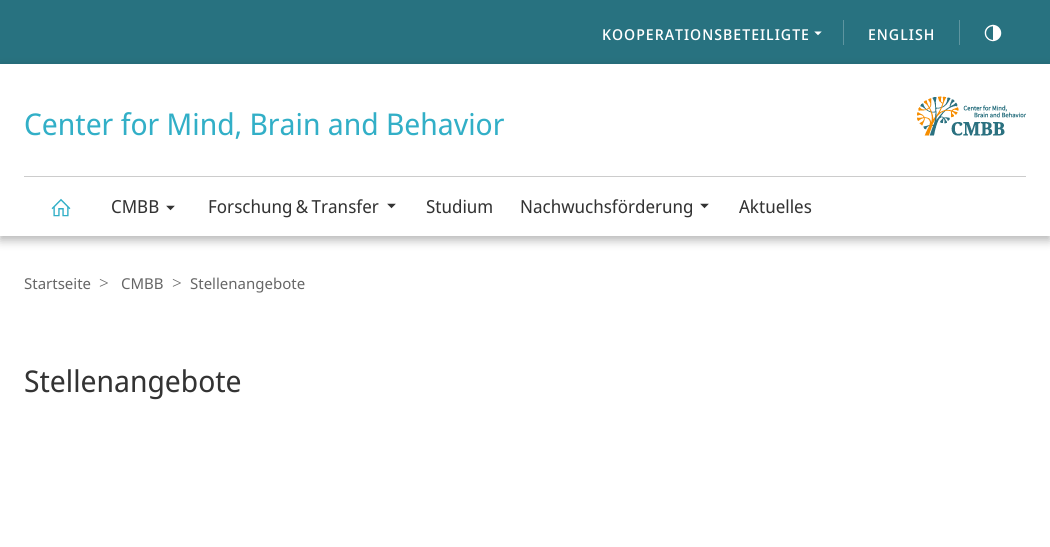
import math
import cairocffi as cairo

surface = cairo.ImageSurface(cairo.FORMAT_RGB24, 1050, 547)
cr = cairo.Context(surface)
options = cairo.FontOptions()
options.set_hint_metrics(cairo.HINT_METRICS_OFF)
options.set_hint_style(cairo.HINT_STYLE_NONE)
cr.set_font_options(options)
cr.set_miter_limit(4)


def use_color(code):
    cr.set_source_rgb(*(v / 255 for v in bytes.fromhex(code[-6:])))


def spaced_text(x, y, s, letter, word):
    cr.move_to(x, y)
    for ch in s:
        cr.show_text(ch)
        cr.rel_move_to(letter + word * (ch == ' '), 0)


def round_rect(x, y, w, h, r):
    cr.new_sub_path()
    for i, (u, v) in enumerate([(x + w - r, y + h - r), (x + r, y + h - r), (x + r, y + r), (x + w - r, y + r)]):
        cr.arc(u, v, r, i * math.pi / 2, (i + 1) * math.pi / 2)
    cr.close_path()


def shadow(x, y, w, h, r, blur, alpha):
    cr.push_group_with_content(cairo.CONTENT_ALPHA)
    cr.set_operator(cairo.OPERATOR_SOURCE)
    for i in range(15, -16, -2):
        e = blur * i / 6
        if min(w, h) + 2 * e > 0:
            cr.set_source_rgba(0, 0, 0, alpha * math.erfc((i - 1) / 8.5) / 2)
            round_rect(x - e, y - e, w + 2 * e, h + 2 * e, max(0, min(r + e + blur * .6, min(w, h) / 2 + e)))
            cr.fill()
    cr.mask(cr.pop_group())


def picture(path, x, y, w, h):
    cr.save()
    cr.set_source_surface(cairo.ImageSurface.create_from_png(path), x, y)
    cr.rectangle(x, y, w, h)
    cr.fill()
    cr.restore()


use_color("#ffffff")
cr.paint()
use_color("#287280")
cr.rectangle(0, 0, 1050, 64)
cr.fill()
cr.select_font_face("Noto Sans Display Medium")
cr.set_font_size(15)
use_color("#ffffff")
spaced_text(602, 40, "KOOPERATIONSBETEILIGTE", 1, 0)
picture("img1.png", 814, 31, 8, 5)
use_color("#5e95a0")
cr.rectangle(843, 20, 1, 25)
cr.fill()
use_color("#ffffff")
spaced_text(868, 40, "ENGLISH", 1, 0)
use_color("#5e95a0")
cr.rectangle(959, 20, 1, 25)
cr.fill()
picture("img2.png", 984, 24, 18, 18)
cr.save()
cr.set_fill_rule(cairo.FILL_RULE_EVEN_ODD)
cr.new_path()
cr.move_to(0, 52)
cr.line_to(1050, 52)
cr.line_to(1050, 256)
cr.line_to(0, 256)
cr.close_path()
cr.move_to(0, 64)
cr.line_to(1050, 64)
cr.line_to(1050, 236)
cr.line_to(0, 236)
cr.close_path()
cr.clip()
use_color("#000000")
shadow(0, 68, 1050, 172, 0, 5, 0.3)
cr.restore()
cr.select_font_face("Noto Sans Display")
cr.set_font_size(30)
use_color("#32afc7")
cr.move_to(24, 135)
cr.show_text("Center for Mind, Brain and Behavior")
picture("img3.png", 917, 96, 109, 40)
use_color("#cccccc")
cr.rectangle(24, 176, 1002, 1)
cr.fill()
picture("img4.png", 51, 198, 20, 19)
cr.set_font_size(18)
use_color("#333333")
cr.move_to(111, 213)
cr.show_text("CMBB")
picture("img5.png", 166, 205, 9, 6)
spaced_text(208, 213, "Forschung & Transfer", 0, -1)
picture("img5.png", 387, 203, 9, 6)
cr.move_to(426, 213)
cr.show_text("Studium")
cr.move_to(520, 213)
cr.show_text("Nachwuchsförderung")
picture("img5.png", 700, 203, 9, 6)
cr.move_to(739, 213)
cr.show_text("Aktuelles")
cr.select_font_face("Noto Sans")
cr.set_font_size(15)
use_color("#666666")
cr.move_to(24, 289)
cr.show_text("Startseite")
cr.select_font_face("Noto Sans Light")
cr.set_font_size(17)
cr.move_to(99, 289)
cr.show_text(">")
cr.select_font_face("Noto Sans")
cr.set_font_size(15)
cr.move_to(121, 289)
cr.show_text("CMBB")
cr.select_font_face("Noto Sans Light")
cr.set_font_size(17)
cr.move_to(172, 289)
cr.show_text(">")
cr.select_font_face("Noto Sans")
cr.set_font_size(15)
cr.move_to(190, 289)
cr.show_text("Stellenangebote")
cr.select_font_face("Noto Sans Display")
cr.set_font_size(30)
use_color("#333333")
cr.move_to(24, 392)
cr.show_text("Stellenangebote")
surface.write_to_png("result.png")
